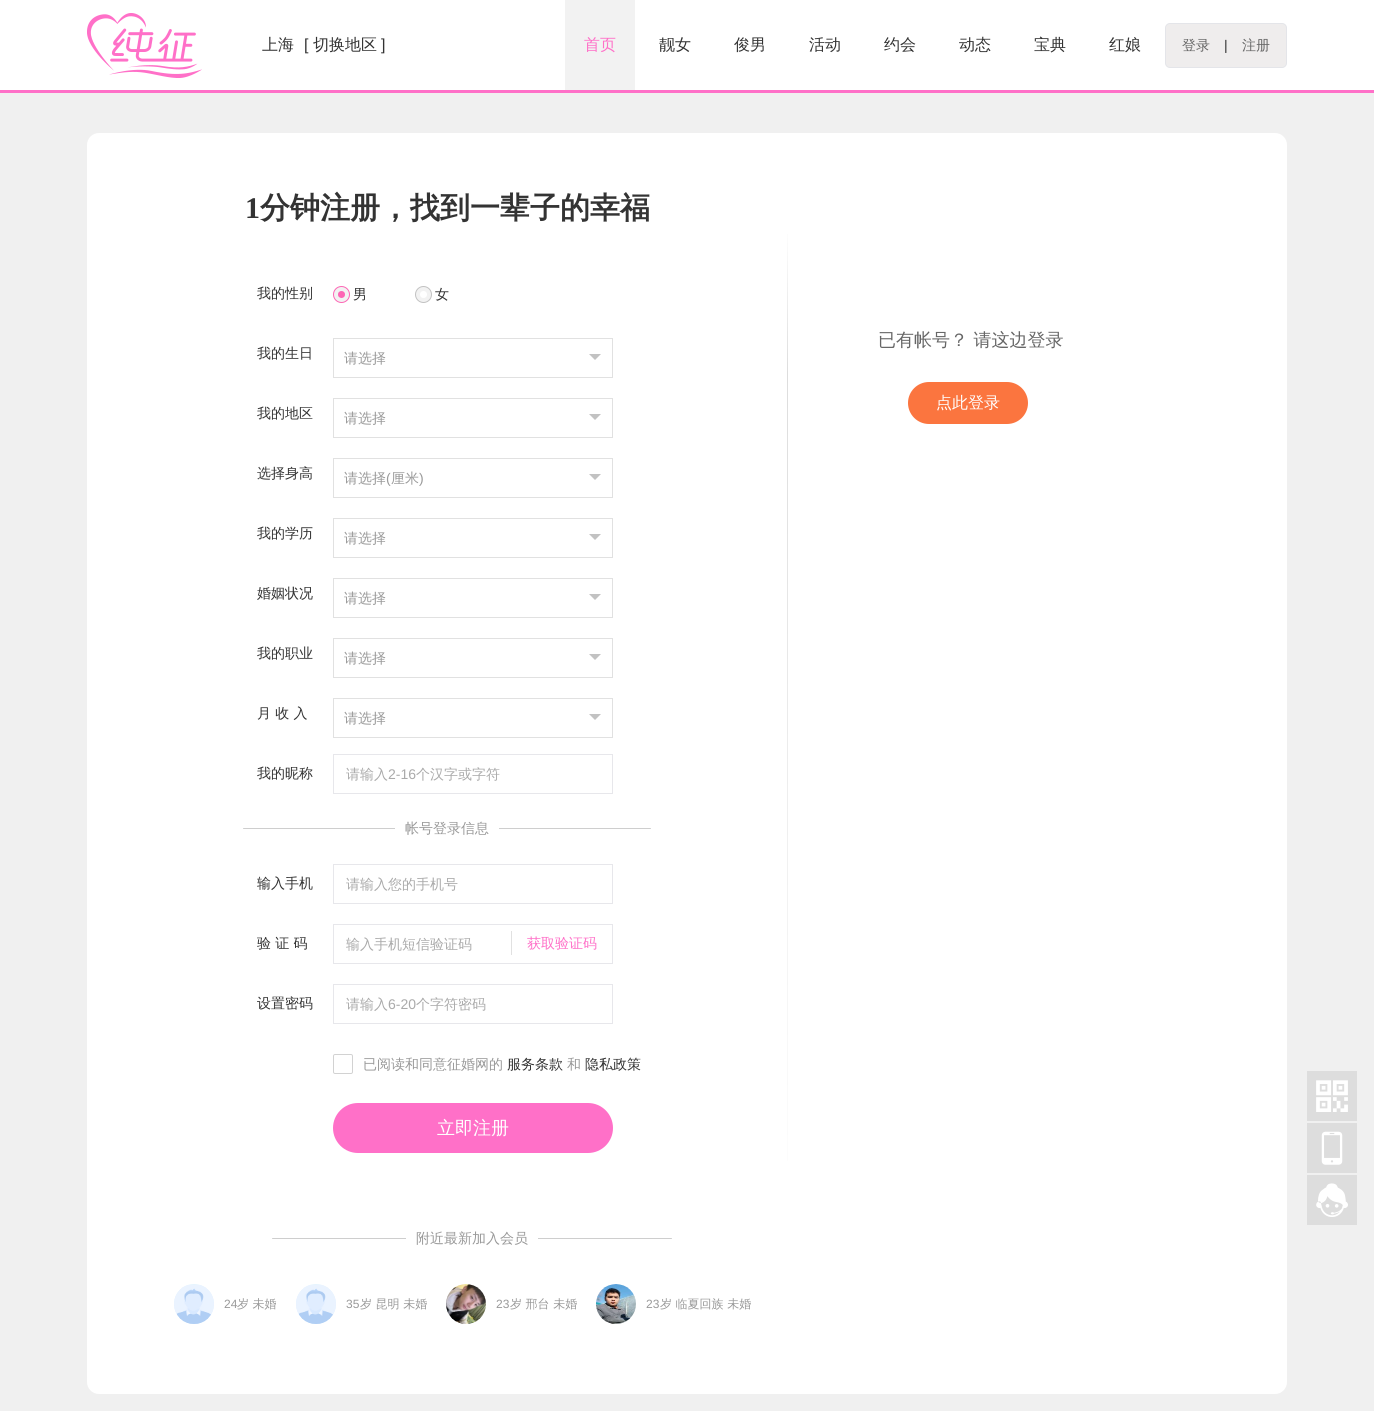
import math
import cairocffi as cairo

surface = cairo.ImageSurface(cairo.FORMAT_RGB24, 1374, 1411)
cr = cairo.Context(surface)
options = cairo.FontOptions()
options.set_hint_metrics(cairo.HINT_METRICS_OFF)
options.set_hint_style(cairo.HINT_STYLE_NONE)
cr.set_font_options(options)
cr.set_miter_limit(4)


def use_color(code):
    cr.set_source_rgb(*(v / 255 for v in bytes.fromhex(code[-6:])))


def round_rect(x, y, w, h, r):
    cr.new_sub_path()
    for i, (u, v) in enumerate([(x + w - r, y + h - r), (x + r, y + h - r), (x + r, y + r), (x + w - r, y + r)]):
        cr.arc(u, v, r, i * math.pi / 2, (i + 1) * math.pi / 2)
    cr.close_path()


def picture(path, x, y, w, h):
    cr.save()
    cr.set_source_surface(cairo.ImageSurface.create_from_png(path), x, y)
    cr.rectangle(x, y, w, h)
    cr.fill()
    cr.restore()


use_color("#f0f0f0")
cr.paint()
use_color("#ffffff")
cr.rectangle(0, 0, 1374, 90)
cr.fill()
use_color("#ff70c8")
cr.rectangle(0, 90, 1374, 3)
cr.fill()
picture("img1.png", 87, 13, 115, 65)
cr.select_font_face("WenQuanYi Zen Hei Medium")
cr.set_font_size(16)
use_color("#333333")
cr.move_to(262, 50)
cr.show_text("上海")
cr.select_font_face("Liberation Sans")
cr.move_to(304, 50)
cr.show_text("[")
cr.select_font_face("WenQuanYi Zen Hei Medium")
cr.move_to(313, 50)
cr.show_text("切换地区")
cr.select_font_face("Liberation Sans")
cr.move_to(381, 50)
cr.show_text("]")
use_color("#f2f2f2")
cr.rectangle(565, 0, 70, 90)
cr.fill()
cr.select_font_face("WenQuanYi Zen Hei Medium")
use_color("#ff70c8")
cr.move_to(584, 50)
cr.show_text("首页")
use_color("#333333")
cr.move_to(659, 50)
cr.show_text("靓女")
cr.move_to(734, 50)
cr.show_text("俊男")
cr.move_to(809, 50)
cr.show_text("活动")
cr.move_to(884, 50)
cr.show_text("约会")
cr.move_to(959, 50)
cr.show_text("动态")
cr.move_to(1034, 50)
cr.show_text("宝典")
cr.move_to(1109, 50)
cr.show_text("红娘")
use_color("#efeded")
round_rect(1165.5, 23.5, 121, 44, 4.5)
cr.fill_preserve()
use_color("#e4e5e9")
cr.set_line_width(1)
cr.stroke()
cr.set_font_size(14)
use_color("#666666")
cr.move_to(1182, 50)
cr.show_text("登录")
cr.select_font_face("Liberation Sans")
use_color("#333333")
cr.move_to(1224, 50)
cr.show_text("|")
cr.select_font_face("WenQuanYi Zen Hei Medium")
use_color("#666666")
cr.move_to(1242, 50)
cr.show_text("注册")
use_color("#ffffff")
round_rect(87, 133, 1200, 1261, 12)
cr.fill()
cr.select_font_face("Liberation Serif", cairo.FONT_SLANT_NORMAL, cairo.FONT_WEIGHT_BOLD)
cr.set_font_size(30)
use_color("#333333")
cr.move_to(245, 218)
cr.show_text("1")
cr.select_font_face("WenQuanYi Zen Hei", cairo.FONT_SLANT_NORMAL, cairo.FONT_WEIGHT_BOLD)
cr.move_to(260, 218)
cr.show_text("分钟注册，找到一辈子的幸福")
cr.select_font_face("WenQuanYi Zen Hei Medium")
cr.set_font_size(14)
cr.move_to(257, 298)
cr.show_text("我的性别")
use_color("#f2f2f2")
cr.new_path()
cr.arc(341.5, 294.5, 8, 0, 2 * math.pi)
cr.fill_preserve()
use_color("#fd66b5")
cr.stroke()
cr.arc(341.5, 294.5, 3.5, 0, 2 * math.pi)
cr.fill()
use_color("#333333")
cr.move_to(353, 299)
cr.show_text("男")
use_color("#f2f2f2")
cr.new_path()
cr.arc(423.5, 294.5, 8, 0, 2 * math.pi)
cr.fill_preserve()
use_color("#c2c2c2")
cr.stroke()
use_color("#ffffff")
cr.arc(423.5, 294.5, 3.5, 0, 2 * math.pi)
cr.fill()
use_color("#333333")
cr.move_to(435, 299)
cr.show_text("女")
cr.move_to(257, 358)
cr.show_text("我的生日")
cr.rectangle(333.5, 338.5, 279, 39)
use_color("#e1e1e1")
cr.stroke()
use_color("#999999")
cr.move_to(344, 363)
cr.show_text("请选择")
picture("img2.png", 589, 354, 12, 6)
use_color("#333333")
cr.move_to(257, 418)
cr.show_text("我的地区")
cr.rectangle(333.5, 398.5, 279, 39)
use_color("#e1e1e1")
cr.stroke()
use_color("#999999")
cr.move_to(344, 423)
cr.show_text("请选择")
picture("img2.png", 589, 414, 12, 6)
use_color("#333333")
cr.move_to(257, 478)
cr.show_text("选择身高")
cr.rectangle(333.5, 458.5, 279, 39)
use_color("#e1e1e1")
cr.stroke()
use_color("#999999")
cr.move_to(344, 483)
cr.show_text("请选择")
cr.select_font_face("Liberation Sans")
cr.move_to(386, 483)
cr.show_text("(")
cr.select_font_face("WenQuanYi Zen Hei Medium")
cr.move_to(391, 483)
cr.show_text("厘米")
cr.select_font_face("Liberation Sans")
cr.move_to(419, 483)
cr.show_text(")")
picture("img2.png", 589, 474, 12, 6)
cr.select_font_face("WenQuanYi Zen Hei Medium")
use_color("#333333")
cr.move_to(257, 538)
cr.show_text("我的学历")
cr.rectangle(333.5, 518.5, 279, 39)
use_color("#e1e1e1")
cr.stroke()
use_color("#999999")
cr.move_to(344, 543)
cr.show_text("请选择")
picture("img2.png", 589, 534, 12, 6)
use_color("#333333")
cr.move_to(257, 598)
cr.show_text("婚姻状况")
cr.rectangle(333.5, 578.5, 279, 39)
use_color("#e1e1e1")
cr.stroke()
use_color("#999999")
cr.move_to(344, 603)
cr.show_text("请选择")
picture("img2.png", 589, 594, 12, 6)
use_color("#333333")
cr.move_to(257, 658)
cr.show_text("我的职业")
cr.rectangle(333.5, 638.5, 279, 39)
use_color("#e1e1e1")
cr.stroke()
use_color("#999999")
cr.move_to(344, 663)
cr.show_text("请选择")
picture("img2.png", 589, 654, 12, 6)
use_color("#333333")
cr.move_to(257, 718)
cr.show_text("月 收 入")
cr.rectangle(333.5, 698.5, 279, 39)
use_color("#e1e1e1")
cr.stroke()
use_color("#999999")
cr.move_to(344, 723)
cr.show_text("请选择")
picture("img2.png", 589, 714, 12, 6)
use_color("#333333")
cr.move_to(257, 778)
cr.show_text("我的昵称")
cr.rectangle(333.5, 754.5, 279, 39)
use_color("#e7e7eb")
cr.stroke()
use_color("#aaaaaa")
cr.move_to(346, 779)
cr.show_text("请输入")
cr.select_font_face("Liberation Sans")
cr.move_to(388, 779)
cr.show_text("2-16")
cr.select_font_face("WenQuanYi Zen Hei Medium")
cr.move_to(416, 779)
cr.show_text("个汉字或字符")
use_color("#cecece")
round_rect(243, 828, 408, 1, 0.5)
cr.fill()
use_color("#ffffff")
cr.rectangle(395, 828, 104, 1)
cr.fill()
use_color("#999999")
cr.move_to(405, 833)
cr.show_text("帐号登录信息")
use_color("#333333")
cr.move_to(257, 888)
cr.show_text("输入手机")
cr.rectangle(333.5, 864.5, 279, 39)
use_color("#e7e7eb")
cr.stroke()
use_color("#aaaaaa")
cr.move_to(346, 889)
cr.show_text("请输入您的手机号")
use_color("#333333")
cr.move_to(257, 948)
cr.show_text("验 证 码")
cr.rectangle(333.5, 924.5, 279, 39)
use_color("#e7e7eb")
cr.stroke()
use_color("#aaaaaa")
cr.move_to(346, 949)
cr.show_text("输入手机短信验证码")
use_color("#e1e1e1")
cr.rectangle(511, 931, 1, 24)
cr.fill()
use_color("#ff70c8")
cr.move_to(527, 948)
cr.show_text("获取验证码")
use_color("#333333")
cr.move_to(257, 1008)
cr.show_text("设置密码")
cr.rectangle(333.5, 984.5, 279, 39)
use_color("#e7e7eb")
cr.stroke()
use_color("#aaaaaa")
cr.move_to(346, 1009)
cr.show_text("请输入")
cr.select_font_face("Liberation Sans")
cr.move_to(388, 1009)
cr.show_text("6-20")
cr.select_font_face("WenQuanYi Zen Hei Medium")
cr.move_to(416, 1009)
cr.show_text("个字符密码")
round_rect(333.5, 1054.5, 19, 19, 1.5)
use_color("#d2d2d2")
cr.stroke()
use_color("#999999")
cr.move_to(363, 1069)
cr.show_text("已阅读和同意征婚网的")
use_color("#333333")
cr.move_to(507, 1069)
cr.show_text("服务条款")
use_color("#999999")
cr.move_to(567, 1069)
cr.show_text("和")
use_color("#333333")
cr.move_to(585, 1069)
cr.show_text("隐私政策")
use_color("#ff70c8")
round_rect(333, 1103, 280, 50, 25)
cr.fill()
cr.set_font_size(18)
use_color("#ffffff")
cr.move_to(437, 1134)
cr.show_text("立即注册")
use_color("#cecece")
round_rect(272, 1238, 400, 1, 0.5)
cr.fill()
use_color("#ffffff")
cr.rectangle(406, 1238, 132, 1)
cr.fill()
cr.set_font_size(14)
use_color("#999999")
cr.move_to(416, 1243)
cr.show_text("附近最新加入会员")
use_color("#e6f4fe")
cr.new_path()
cr.arc(194, 1304, 20, 0, 2 * math.pi)
cr.fill()
picture("img3.png", 174, 1285, 40, 39)
cr.select_font_face("Liberation Sans")
cr.set_font_size(12)
use_color("#999999")
cr.move_to(224, 1308)
cr.show_text("24")
cr.select_font_face("WenQuanYi Zen Hei Medium")
cr.move_to(237, 1308)
cr.show_text("岁 未婚")
use_color("#e6f4fe")
cr.new_path()
cr.arc(316, 1304, 20, 0, 2 * math.pi)
cr.fill()
picture("img3.png", 296, 1285, 40, 39)
cr.select_font_face("Liberation Sans")
use_color("#999999")
cr.move_to(346, 1308)
cr.show_text("35")
cr.select_font_face("WenQuanYi Zen Hei Medium")
cr.move_to(360, 1308)
cr.show_text("岁 昆明 未婚")
picture("img4.png", 446, 1284, 40, 40)
cr.select_font_face("Liberation Sans")
cr.move_to(496, 1308)
cr.show_text("23")
cr.select_font_face("WenQuanYi Zen Hei Medium")
cr.move_to(510, 1308)
cr.show_text("岁 邢台 未婚")
picture("img5.png", 596, 1284, 40, 40)
cr.select_font_face("Liberation Sans")
cr.move_to(646, 1308)
cr.show_text("23")
cr.select_font_face("WenQuanYi Zen Hei Medium")
cr.move_to(660, 1308)
cr.show_text("岁 临夏回族 未婚")
gradient = cairo.LinearGradient(788, 223, 788, 373)
gradient.add_color_stop_rgba(0, 1, 1, 1, 1)
gradient.add_color_stop_rgba(1, 0.867, 0.867, 0.867, 1)
cr.set_source(gradient)
cr.rectangle(787, 234, 1, 139)
cr.fill()
gradient = cairo.LinearGradient(788, 373, 788, 1223)
gradient.add_color_stop_rgba(0, 0.867, 0.867, 0.867, 1)
gradient.add_color_stop_rgba(1, 1, 1, 1, 1)
cr.set_source(gradient)
cr.rectangle(787, 373, 1, 788)
cr.fill()
cr.set_font_size(18)
use_color("#666666")
cr.move_to(878, 346)
cr.show_text("已有帐号？ 请这边登录")
use_color("#fb753f")
round_rect(908, 382, 120, 42, 21)
cr.fill()
cr.set_font_size(16)
use_color("#ffffff")
cr.move_to(936, 408)
cr.show_text("点此登录")
use_color("#dddddd")
cr.rectangle(1307, 1071, 50, 50)
cr.fill()
picture("img6.png", 1316, 1080, 32, 32)
cr.rectangle(1307, 1123, 50, 50)
cr.fill()
picture("img7.png", 1321, 1131, 22, 34)
cr.rectangle(1307, 1175, 50, 50)
cr.fill()
picture("img8.png", 1316, 1183, 32, 34)
surface.write_to_png("result.png")
